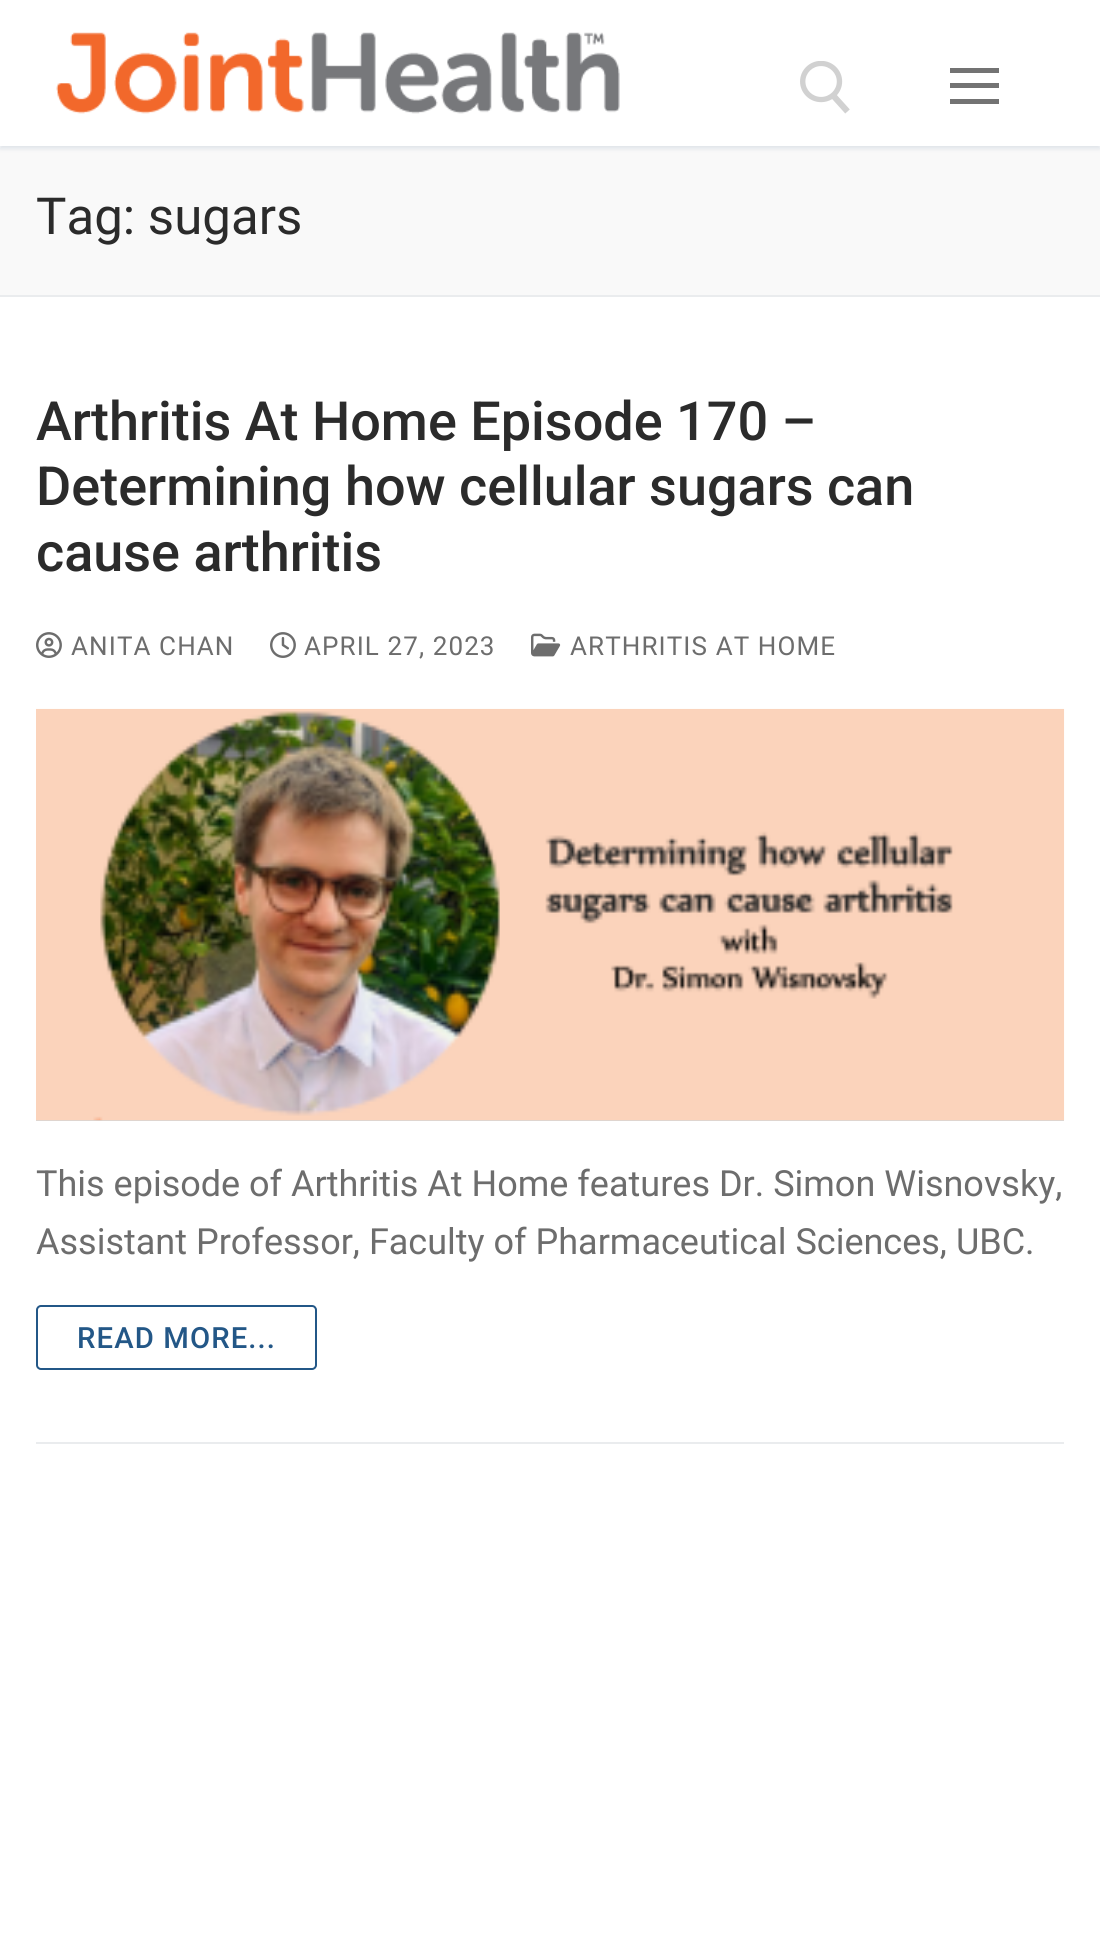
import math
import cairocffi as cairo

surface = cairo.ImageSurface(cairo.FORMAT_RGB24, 1100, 1948)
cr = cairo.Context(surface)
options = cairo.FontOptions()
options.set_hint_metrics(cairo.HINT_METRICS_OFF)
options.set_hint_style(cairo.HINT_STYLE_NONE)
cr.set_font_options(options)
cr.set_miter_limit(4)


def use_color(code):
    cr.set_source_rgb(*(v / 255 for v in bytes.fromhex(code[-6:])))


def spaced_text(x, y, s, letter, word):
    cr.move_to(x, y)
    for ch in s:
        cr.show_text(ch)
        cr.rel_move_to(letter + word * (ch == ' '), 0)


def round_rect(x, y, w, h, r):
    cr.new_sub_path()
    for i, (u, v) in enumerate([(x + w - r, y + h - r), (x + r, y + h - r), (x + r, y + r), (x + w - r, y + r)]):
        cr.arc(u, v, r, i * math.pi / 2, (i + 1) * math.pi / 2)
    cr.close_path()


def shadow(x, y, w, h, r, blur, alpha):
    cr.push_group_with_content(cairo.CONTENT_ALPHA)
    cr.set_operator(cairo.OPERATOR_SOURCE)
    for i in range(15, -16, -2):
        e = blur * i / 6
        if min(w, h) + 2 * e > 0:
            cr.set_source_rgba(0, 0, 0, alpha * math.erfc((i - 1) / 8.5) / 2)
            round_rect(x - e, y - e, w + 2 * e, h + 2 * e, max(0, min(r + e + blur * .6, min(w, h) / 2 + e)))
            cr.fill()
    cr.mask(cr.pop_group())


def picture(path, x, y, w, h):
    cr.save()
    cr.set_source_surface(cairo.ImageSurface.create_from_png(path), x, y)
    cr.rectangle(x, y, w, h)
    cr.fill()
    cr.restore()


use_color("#ffffff")
cr.paint()
use_color("#f9f9f9")
cr.rectangle(0, 146, 1100, 149)
cr.fill()
cr.save()
cr.rectangle(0, 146, 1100, 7)
cr.clip()
use_color("#e1e5ea")
shadow(0, 2, 1100, 147, 0, 2, 1)
cr.restore()
picture("img1.png", 56, 32, 564, 82)
picture("img2.png", 800, 61, 50, 53)
use_color("#737373")
cr.rectangle(950, 83, 49, 5)
cr.fill()
cr.rectangle(950, 68, 49, 5)
cr.fill()
cr.rectangle(950, 99, 49, 5)
cr.fill()
use_color("#eaecee")
cr.rectangle(0, 295, 1100, 2)
cr.fill()
cr.select_font_face("Roboto")
cr.set_font_size(51)
use_color("#2b2b2b")
cr.move_to(36, 234)
cr.show_text("Tag: sugars")
use_color("#eaecee")
cr.rectangle(36, 1442, 1028, 2)
cr.fill()
cr.select_font_face("Roboto Medium")
cr.set_font_size(54)
use_color("#2b2b2b")
cr.move_to(36, 440)
cr.show_text("Arthritis At Home Episode 170 –")
cr.move_to(36, 505)
cr.show_text("Determining how cellular sugars can")
cr.move_to(36, 571)
cr.show_text("cause arthritis")
picture("img3.png", 36, 632, 26, 26)
cr.select_font_face("Roboto")
cr.set_font_size(26)
use_color("#6d6d6d")
spaced_text(71, 655, "ANITA CHAN", 1.1, 0)
picture("img4.png", 270, 632, 26, 26)
spaced_text(304, 655, "APRIL 27, 2023", 1.1, 0)
picture("img5.png", 531, 633, 30, 24)
spaced_text(570, 655, "ARTHRITIS AT HOME", 1.1, 0)
use_color("#d5d5d5")
cr.rectangle(36, 1120, 1028, 1)
cr.fill()
picture("img6.png", 36, 708, 1029, 413)
cr.set_font_size(36)
use_color("#6d6d6d")
cr.move_to(36, 1196)
cr.show_text("This episode of Arthritis At Home features Dr. Simon Wisnovsky,")
cr.move_to(36, 1254)
cr.show_text("Assistant Professor, Faculty of Pharmaceutical Sciences, UBC.")
round_rect(37, 1306, 279, 63, 4)
use_color("#235787")
cr.stroke()
cr.select_font_face("Roboto Medium")
cr.set_font_size(29.25)
spaced_text(77, 1348, "READ MORE...", 1.1, 0)
surface.write_to_png("result.png")
